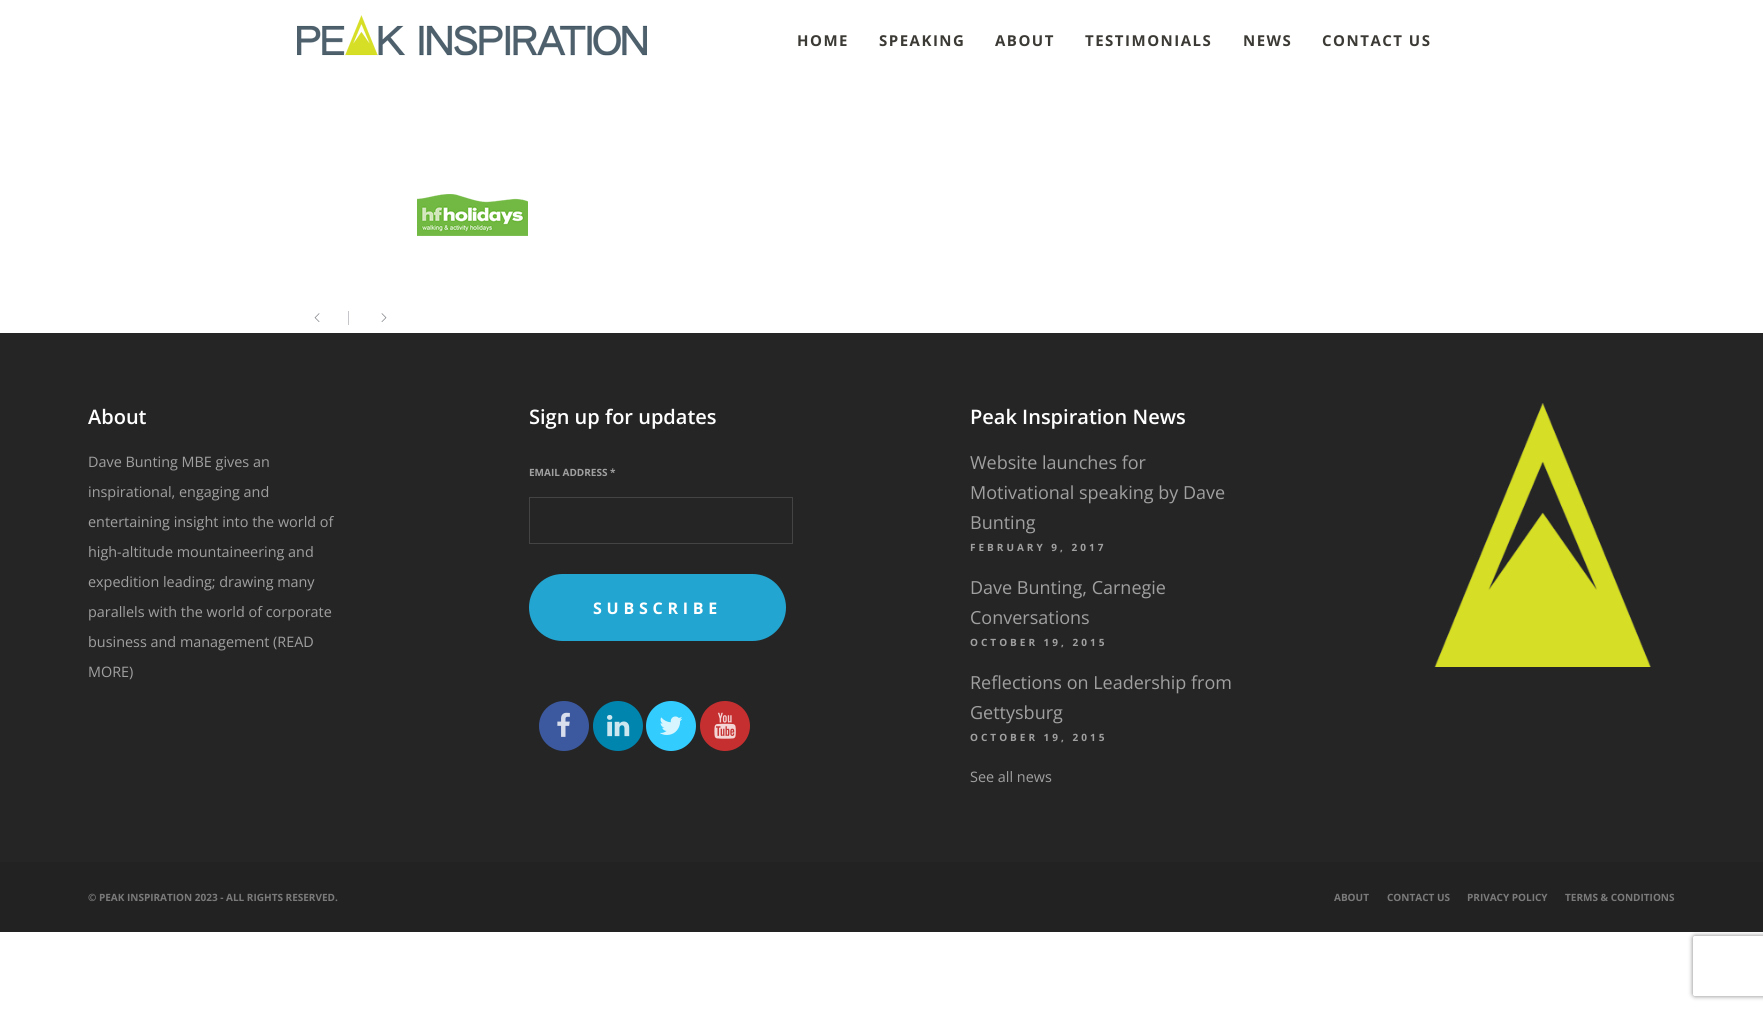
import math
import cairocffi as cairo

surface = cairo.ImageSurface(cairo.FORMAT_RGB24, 1763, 1010)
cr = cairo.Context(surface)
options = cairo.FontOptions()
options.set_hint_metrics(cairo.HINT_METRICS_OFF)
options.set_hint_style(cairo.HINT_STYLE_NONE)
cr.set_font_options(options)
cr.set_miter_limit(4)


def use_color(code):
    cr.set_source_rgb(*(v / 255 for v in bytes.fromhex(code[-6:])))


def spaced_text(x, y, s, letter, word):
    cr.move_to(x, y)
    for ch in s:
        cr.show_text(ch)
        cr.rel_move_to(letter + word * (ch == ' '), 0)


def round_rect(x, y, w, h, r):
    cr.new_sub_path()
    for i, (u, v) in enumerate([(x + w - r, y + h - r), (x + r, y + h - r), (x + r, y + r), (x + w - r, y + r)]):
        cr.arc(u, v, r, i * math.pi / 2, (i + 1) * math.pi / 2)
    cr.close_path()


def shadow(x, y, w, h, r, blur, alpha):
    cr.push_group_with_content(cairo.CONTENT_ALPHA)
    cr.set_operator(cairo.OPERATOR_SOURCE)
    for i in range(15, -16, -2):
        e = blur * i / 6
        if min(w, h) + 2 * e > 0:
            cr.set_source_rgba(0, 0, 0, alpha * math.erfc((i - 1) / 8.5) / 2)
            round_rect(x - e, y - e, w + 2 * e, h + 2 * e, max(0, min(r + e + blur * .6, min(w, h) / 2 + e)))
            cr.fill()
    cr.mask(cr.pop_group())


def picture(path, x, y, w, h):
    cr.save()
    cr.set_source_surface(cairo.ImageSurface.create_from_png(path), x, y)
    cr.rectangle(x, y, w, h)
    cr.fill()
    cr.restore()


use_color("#ffffff")
cr.paint()
picture("img1.png", 297, 15, 350, 41)
cr.select_font_face("Open Sans", cairo.FONT_SLANT_NORMAL, cairo.FONT_WEIGHT_BOLD)
cr.set_font_size(15)
use_color("#3c3a35")
spaced_text(797, 46, "HOME", 1.5, 0)
spaced_text(879, 46, "SPEAKING", 1.5, 0)
spaced_text(995, 46, "ABOUT", 1.5, 0)
spaced_text(1085, 46, "TESTIMONIALS", 1.5, 0)
spaced_text(1243, 46, "NEWS", 1.5, 0)
spaced_text(1322, 46, "CONTACT US", 1.5, 0)
picture("img2.png", 417, 194, 111, 42)
picture("img3.png", 314, 313, 6, 9)
use_color("#c5c6c9")
cr.rectangle(348, 311, 1, 14)
cr.fill()
picture("img4.png", 381, 313, 6, 9)
use_color("#252525")
cr.rectangle(0, 333, 1763, 529)
cr.fill()
cr.select_font_face("Open Sans SemiBold")
cr.set_font_size(20)
use_color("#ffffff")
cr.move_to(88, 424)
cr.show_text("About")
cr.select_font_face("Open Sans")
cr.set_font_size(14.4)
use_color("#a0a0a0")
cr.move_to(88, 467)
cr.show_text("Dave Bunting MBE gives an")
cr.move_to(88, 497)
cr.show_text("inspirational, engaging and")
cr.move_to(88, 527)
cr.show_text("entertaining insight into the world of")
cr.move_to(88, 557)
cr.show_text("high-altitude mountaineering and")
cr.move_to(88, 587)
cr.show_text("expedition leading; drawing many")
cr.move_to(88, 617)
cr.show_text("parallels with the world of corporate")
cr.move_to(88, 647)
cr.show_text("business and management (READ")
cr.move_to(88, 677)
cr.show_text("MORE)")
cr.select_font_face("Open Sans SemiBold")
cr.set_font_size(20)
use_color("#ffffff")
cr.move_to(529, 424)
cr.show_text("Sign up for updates")
cr.select_font_face("Open Sans", cairo.FONT_SLANT_NORMAL, cairo.FONT_WEIGHT_BOLD)
cr.set_font_size(10)
use_color("#a0a0a0")
cr.move_to(529, 476)
cr.show_text("EMAIL ADDRESS *")
cr.rectangle(529.5, 497.5, 263, 46)
use_color("#444444")
cr.set_line_width(1)
cr.stroke()
use_color("#23a5d1")
round_rect(529, 574, 257, 67, 33.5)
cr.fill()
cr.set_font_size(16)
use_color("#ffffff")
spaced_text(593, 614, "SUBSCRIBE", 4.75, 0)
use_color("#3c599f")
cr.new_path()
cr.arc(564, 726, 25, 0, 2 * math.pi)
cr.fill()
picture("img5.png", 557, 712, 13, 25)
use_color("#0085ae")
cr.arc(618, 726, 25, 0, 2 * math.pi)
cr.fill()
picture("img6.png", 607, 714, 23, 23)
use_color("#32ccfe")
cr.arc(671, 726, 25, 0, 2 * math.pi)
cr.fill()
picture("img7.png", 660, 716, 23, 19)
use_color("#c52f30")
cr.arc(725, 726, 25, 0, 2 * math.pi)
cr.fill()
picture("img8.png", 714, 712, 22, 27)
cr.select_font_face("Open Sans SemiBold")
cr.set_font_size(20)
use_color("#ffffff")
cr.move_to(970, 424)
cr.show_text("Peak Inspiration News")
cr.select_font_face("Open Sans")
cr.set_font_size(18)
use_color("#a0a0a0")
cr.move_to(970, 469)
cr.show_text("Website launches for")
cr.move_to(970, 499)
cr.show_text("Motivational speaking by Dave")
cr.move_to(970, 529)
cr.show_text("Bunting")
cr.select_font_face("Open Sans", cairo.FONT_SLANT_NORMAL, cairo.FONT_WEIGHT_BOLD)
cr.set_font_size(10)
spaced_text(970, 551, "FEBRUARY 9, 2017", 3, 0)
cr.select_font_face("Open Sans")
cr.set_font_size(18)
cr.move_to(970, 594)
cr.show_text("Dave Bunting, Carnegie")
cr.move_to(970, 624)
cr.show_text("Conversations")
cr.select_font_face("Open Sans", cairo.FONT_SLANT_NORMAL, cairo.FONT_WEIGHT_BOLD)
cr.set_font_size(10)
spaced_text(970, 646, "OCTOBER 19, 2015", 3, 0)
cr.select_font_face("Open Sans")
cr.set_font_size(18)
cr.move_to(970, 689)
cr.show_text("Reflections on Leadership from")
cr.move_to(970, 719)
cr.show_text("Gettysburg")
cr.select_font_face("Open Sans", cairo.FONT_SLANT_NORMAL, cairo.FONT_WEIGHT_BOLD)
cr.set_font_size(10)
spaced_text(970, 741, "OCTOBER 19, 2015", 3, 0)
cr.select_font_face("Open Sans")
cr.set_font_size(14.4)
cr.move_to(970, 782)
cr.show_text("See all news")
picture("img9.png", 1434, 403, 217, 264)
cr.save()
cr.set_fill_rule(cairo.FILL_RULE_EVEN_ODD)
cr.new_path()
cr.move_to(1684, 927)
cr.line_to(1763, 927)
cr.line_to(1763, 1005)
cr.line_to(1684, 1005)
cr.close_path()
cr.move_to(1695, 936)
cr.line_to(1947, 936)
cr.curve_to(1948, 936, 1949, 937, 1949, 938)
cr.line_to(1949, 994)
cr.curve_to(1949, 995, 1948, 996, 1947, 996)
cr.line_to(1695, 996)
cr.curve_to(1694, 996, 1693, 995, 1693, 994)
cr.line_to(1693, 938)
cr.curve_to(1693, 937, 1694, 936, 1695, 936)
cr.close_path()
cr.clip()
use_color("#808080")
shadow(1693, 936, 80, 60, 2, 2.5, 1)
cr.restore()
use_color("#222222")
cr.rectangle(0, 862, 1763, 70)
cr.fill()
cr.select_font_face("Open Sans", cairo.FONT_SLANT_NORMAL, cairo.FONT_WEIGHT_BOLD)
cr.set_font_size(10)
use_color("#7a7a7a")
cr.move_to(88, 901)
cr.show_text("© PEAK INSPIRATION 2023 - ALL RIGHTS RESERVED.")
cr.move_to(1334, 901)
cr.show_text("ABOUT")
cr.move_to(1387, 901)
cr.show_text("CONTACT US")
cr.move_to(1467, 901)
cr.show_text("PRIVACY POLICY")
cr.move_to(1565, 901)
cr.show_text("TERMS & CONDITIONS")
surface.write_to_png("result.png")
